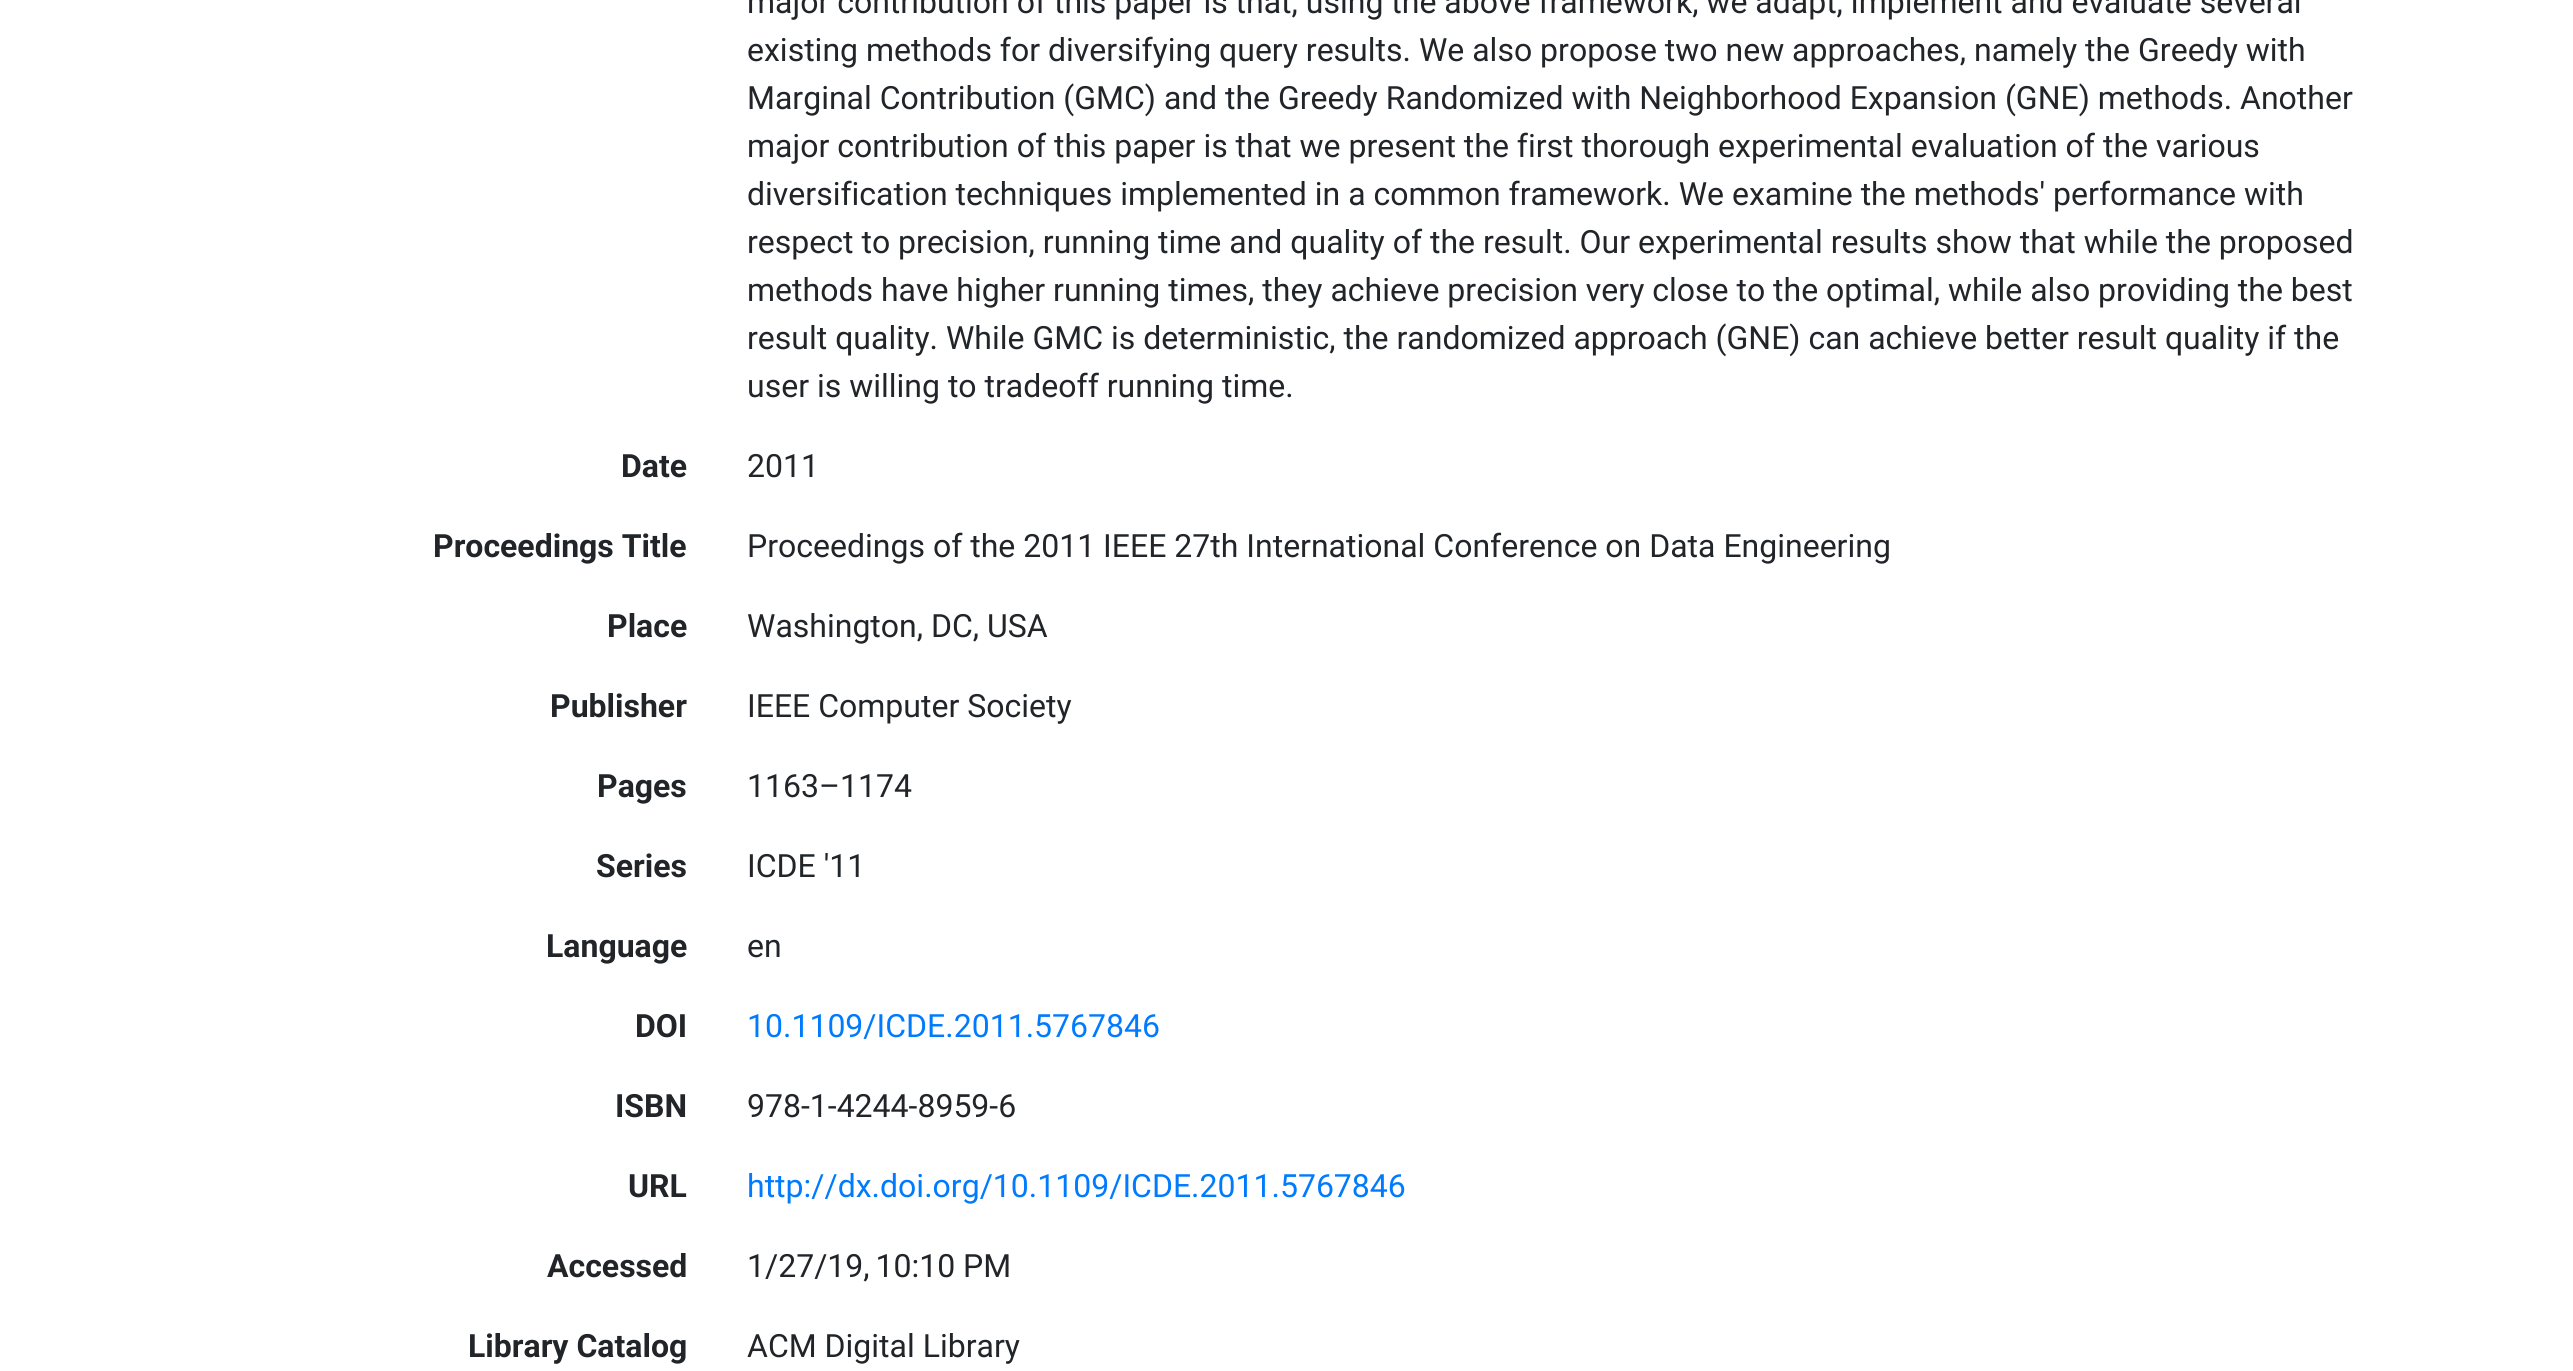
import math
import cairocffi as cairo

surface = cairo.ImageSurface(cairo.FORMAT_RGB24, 2573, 1371)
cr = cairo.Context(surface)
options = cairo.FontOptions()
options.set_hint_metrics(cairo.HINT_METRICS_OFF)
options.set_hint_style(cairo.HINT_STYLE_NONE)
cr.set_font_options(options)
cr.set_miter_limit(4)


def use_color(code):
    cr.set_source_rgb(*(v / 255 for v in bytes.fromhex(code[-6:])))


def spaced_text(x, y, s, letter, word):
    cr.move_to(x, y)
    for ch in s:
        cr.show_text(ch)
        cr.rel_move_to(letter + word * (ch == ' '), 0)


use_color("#ffffff")
cr.paint()
cr.select_font_face("Roboto")
cr.set_font_size(32)
use_color("#212529")
cr.move_to(747, 13)
cr.show_text("major contribution of this paper is that, using the above framework, we adapt, implement and evaluate several")
cr.move_to(747, 61)
cr.show_text("existing methods for diversifying query results. We also propose two new approaches, namely the Greedy with")
cr.move_to(747, 109)
cr.show_text("Marginal Contribution (GMC) and the Greedy Randomized with Neighborhood Expansion (GNE) methods. Another")
cr.move_to(747, 157)
cr.show_text("major contribution of this paper is that we present the first thorough experimental evaluation of the various")
cr.move_to(747, 205)
cr.show_text("diversification techniques implemented in a common framework. We examine the methods' performance with")
cr.move_to(747, 253)
cr.show_text("respect to precision, running time and quality of the result. Our experimental results show that while the proposed")
cr.move_to(747, 301)
cr.show_text("methods have higher running times, they achieve precision very close to the optimal, while also providing the best")
cr.move_to(747, 349)
cr.show_text("result quality. While GMC is deterministic, the randomized approach (GNE) can achieve better result quality if the")
cr.move_to(747, 397)
cr.show_text("user is willing to tradeoff running time.")
cr.select_font_face("Roboto", cairo.FONT_SLANT_NORMAL, cairo.FONT_WEIGHT_BOLD)
cr.move_to(621, 477)
cr.show_text("Date")
cr.select_font_face("Roboto")
cr.move_to(747, 477)
cr.show_text("2011")
cr.select_font_face("Roboto", cairo.FONT_SLANT_NORMAL, cairo.FONT_WEIGHT_BOLD)
cr.move_to(433, 557)
cr.show_text("Proceedings Title")
cr.select_font_face("Roboto")
cr.move_to(747, 557)
cr.show_text("Proceedings of the 2011 IEEE 27th International Conference on Data Engineering")
cr.select_font_face("Roboto", cairo.FONT_SLANT_NORMAL, cairo.FONT_WEIGHT_BOLD)
cr.move_to(607, 637)
cr.show_text("Place")
cr.select_font_face("Roboto")
cr.move_to(747, 637)
cr.show_text("Washington, DC, USA")
cr.select_font_face("Roboto", cairo.FONT_SLANT_NORMAL, cairo.FONT_WEIGHT_BOLD)
cr.move_to(550, 717)
cr.show_text("Publisher")
cr.select_font_face("Roboto")
cr.move_to(747, 717)
cr.show_text("IEEE Computer Society")
cr.select_font_face("Roboto", cairo.FONT_SLANT_NORMAL, cairo.FONT_WEIGHT_BOLD)
cr.move_to(597, 797)
cr.show_text("Pages")
cr.select_font_face("Roboto")
cr.move_to(747, 797)
cr.show_text("1163–1174")
cr.select_font_face("Roboto", cairo.FONT_SLANT_NORMAL, cairo.FONT_WEIGHT_BOLD)
cr.move_to(596, 877)
cr.show_text("Series")
cr.select_font_face("Roboto")
cr.move_to(747, 877)
cr.show_text("ICDE '11")
cr.select_font_face("Roboto", cairo.FONT_SLANT_NORMAL, cairo.FONT_WEIGHT_BOLD)
cr.move_to(546, 957)
cr.show_text("Language")
cr.select_font_face("Roboto")
cr.move_to(747, 957)
cr.show_text("en")
cr.select_font_face("Roboto", cairo.FONT_SLANT_NORMAL, cairo.FONT_WEIGHT_BOLD)
cr.move_to(635, 1037)
cr.show_text("DOI")
cr.select_font_face("Roboto")
use_color("#007bff")
cr.move_to(747, 1037)
cr.show_text("10.1109/ICDE.2011.5767846")
cr.select_font_face("Roboto", cairo.FONT_SLANT_NORMAL, cairo.FONT_WEIGHT_BOLD)
use_color("#212529")
cr.move_to(615, 1117)
cr.show_text("ISBN")
cr.select_font_face("Roboto")
cr.move_to(747, 1117)
cr.show_text("978-1-4244-8959-6")
cr.select_font_face("Roboto", cairo.FONT_SLANT_NORMAL, cairo.FONT_WEIGHT_BOLD)
cr.move_to(628, 1197)
cr.show_text("URL")
cr.select_font_face("Roboto")
use_color("#007bff")
cr.move_to(747, 1197)
cr.show_text("http://dx.doi.org/10.1109/ICDE.2011.5767846")
cr.select_font_face("Roboto", cairo.FONT_SLANT_NORMAL, cairo.FONT_WEIGHT_BOLD)
use_color("#212529")
cr.move_to(547, 1277)
cr.show_text("Accessed")
cr.select_font_face("Roboto")
spaced_text(747, 1277, "1/27/19, 10:10", 0, -2)
cr.move_to(963, 1277)
cr.show_text("PM")
cr.select_font_face("Roboto", cairo.FONT_SLANT_NORMAL, cairo.FONT_WEIGHT_BOLD)
cr.move_to(468, 1357)
cr.show_text("Library Catalog")
cr.select_font_face("Roboto")
cr.move_to(747, 1357)
cr.show_text("ACM Digital Library")
surface.write_to_png("result.png")
